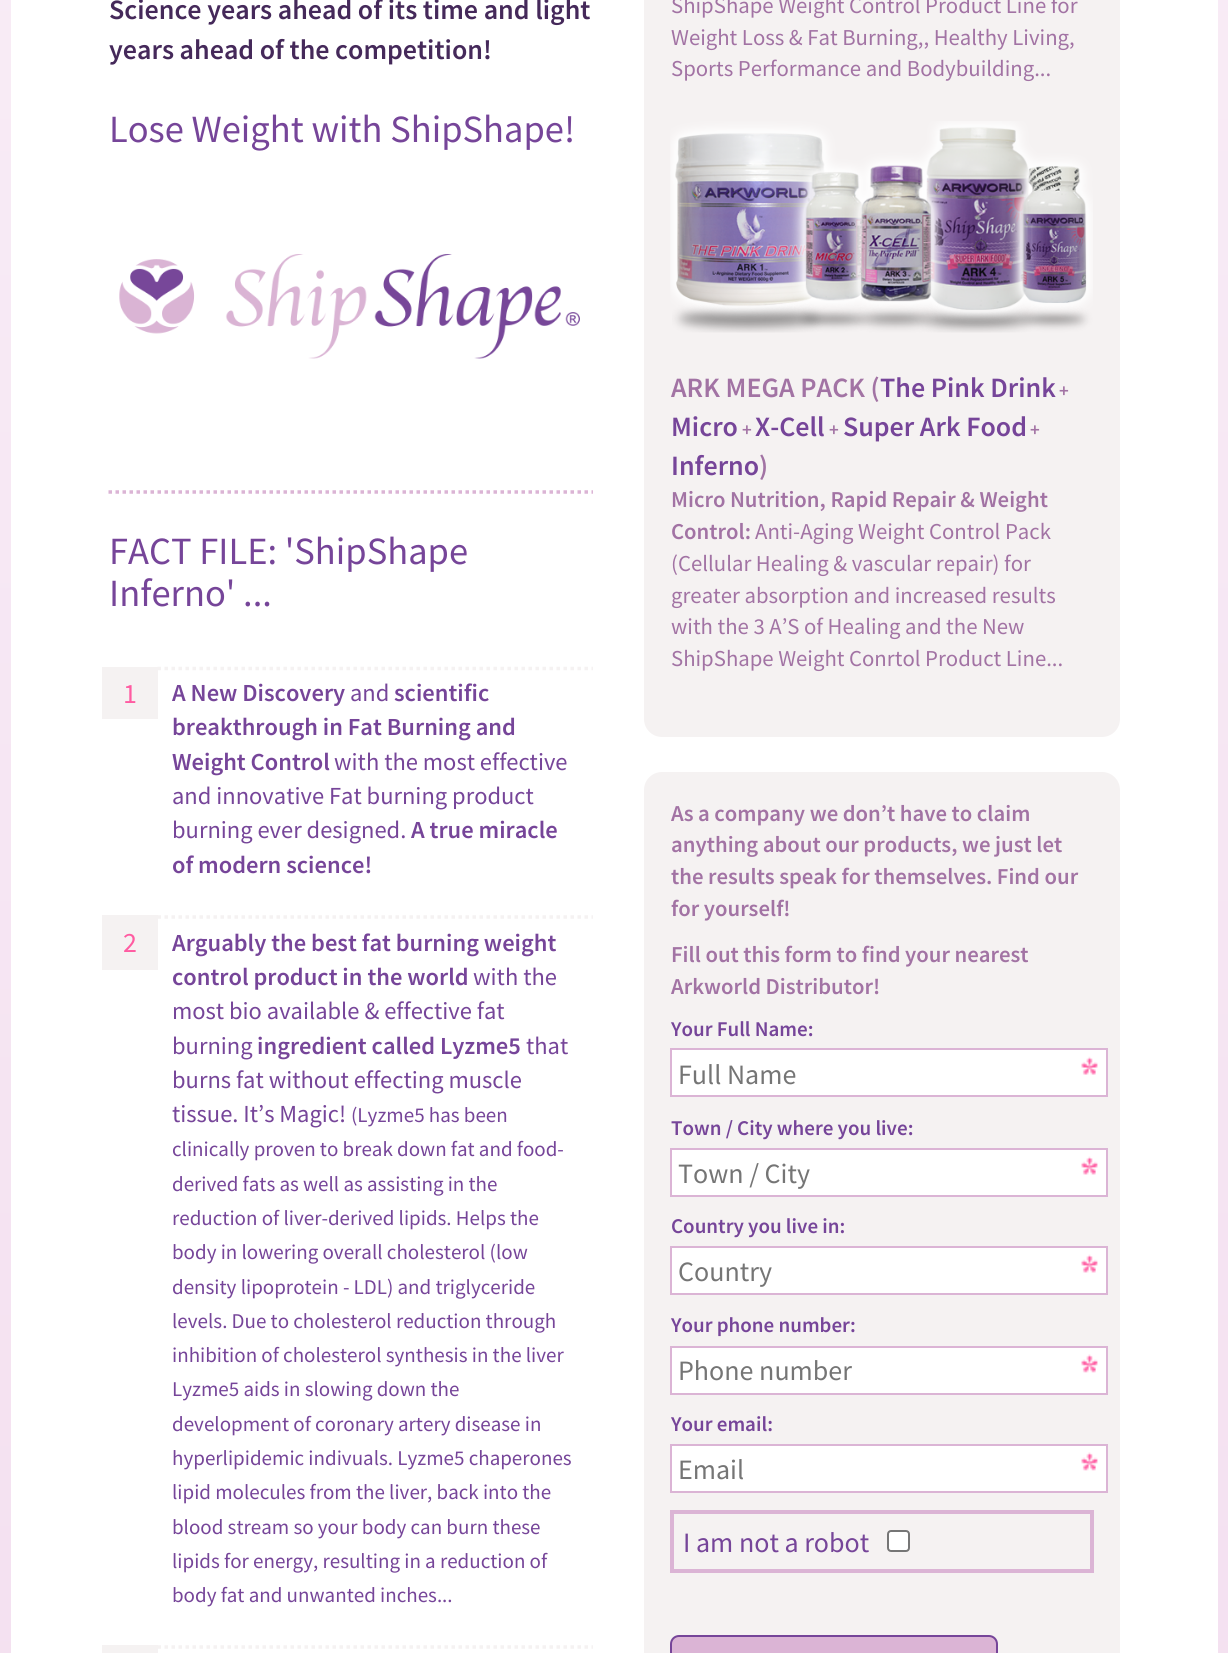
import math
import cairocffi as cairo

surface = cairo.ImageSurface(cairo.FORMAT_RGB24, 1228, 1653)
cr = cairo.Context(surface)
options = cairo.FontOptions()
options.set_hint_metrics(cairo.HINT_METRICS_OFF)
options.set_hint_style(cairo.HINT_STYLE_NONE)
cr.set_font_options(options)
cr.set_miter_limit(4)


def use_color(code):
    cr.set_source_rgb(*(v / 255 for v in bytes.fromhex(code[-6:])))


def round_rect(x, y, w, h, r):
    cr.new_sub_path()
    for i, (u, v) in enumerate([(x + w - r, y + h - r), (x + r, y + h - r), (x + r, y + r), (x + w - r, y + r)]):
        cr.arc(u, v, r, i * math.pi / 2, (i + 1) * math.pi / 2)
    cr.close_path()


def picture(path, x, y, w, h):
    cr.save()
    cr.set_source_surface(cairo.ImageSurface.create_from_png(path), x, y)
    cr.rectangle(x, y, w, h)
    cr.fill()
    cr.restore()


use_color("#ffffff")
cr.paint()
gradient = cairo.LinearGradient(614, -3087, 614, 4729)
gradient.add_color_stop_rgba(0, 1, 1, 1, 1)
gradient.add_color_stop_rgba(1, 0.929, 0.804, 0.906, 1)
cr.set_source(gradient)
cr.rectangle(0, 0, 1228, 1653)
cr.fill()
use_color("#ffffff")
cr.rectangle(11, 0, 1207, 1653)
cr.fill()
cr.select_font_face("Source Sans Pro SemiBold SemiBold")
cr.set_font_size(28)
use_color("#45295a")
cr.move_to(109, 19)
cr.show_text("Science years ahead of its time and light")
cr.move_to(109, 59)
cr.show_text("years ahead of the competition!")
cr.select_font_face("Source Sans Pro")
cr.set_font_size(38.5)
use_color("#764599")
cr.move_to(109, 142)
cr.show_text("Lose Weight with ShipShape!")
picture("img1.png", 119, 254, 461, 105)
cr.new_path()
cr.move_to(108.5, 492)
cr.line_to(593, 492)
use_color("#dbb4d5")
cr.set_line_width(3.5)
cr.set_dash([3.5, 3.5])
cr.stroke()
use_color("#764599")
cr.move_to(109, 564)
cr.show_text("FACT FILE: 'ShipShape")
cr.move_to(109, 606)
cr.show_text("Inferno' ...")
cr.new_path()
cr.move_to(157.5, 668.5)
cr.line_to(593, 668.5)
use_color("#f5f2f2")
cr.stroke()
cr.rectangle(102, 667, 56, 52)
cr.fill()
cr.set_font_size(28)
use_color("#ff5ca2")
cr.move_to(123, 703)
cr.show_text("1")
cr.select_font_face("Source Sans Pro SemiBold SemiBold")
cr.set_font_size(24.5)
use_color("#764599")
cr.move_to(172, 701)
cr.show_text("A New Discovery")
cr.select_font_face("Source Sans Pro")
cr.move_to(350, 701)
cr.show_text("and")
cr.select_font_face("Source Sans Pro SemiBold SemiBold")
cr.move_to(394, 701)
cr.show_text("scientific")
cr.move_to(172, 735)
cr.show_text("breakthrough in Fat Burning and")
cr.move_to(172, 770)
cr.show_text("Weight Control")
cr.select_font_face("Source Sans Pro")
cr.move_to(334, 770)
cr.show_text("with the most effective")
cr.move_to(172, 804)
cr.show_text("and innovative Fat burning product")
cr.move_to(172, 838)
cr.show_text("burning ever designed.")
cr.select_font_face("Source Sans Pro SemiBold SemiBold")
cr.move_to(411, 838)
cr.show_text("A true miracle")
cr.move_to(172, 873)
cr.show_text("of modern science!")
cr.new_path()
cr.move_to(157.5, 917)
cr.line_to(593, 917)
use_color("#f5f2f2")
cr.stroke()
cr.rectangle(102, 915, 56, 55)
cr.fill()
cr.select_font_face("Source Sans Pro")
cr.set_font_size(28)
use_color("#ff5ca2")
cr.move_to(123, 952)
cr.show_text("2")
cr.select_font_face("Source Sans Pro SemiBold SemiBold")
cr.set_font_size(24.5)
use_color("#764599")
cr.move_to(172, 951)
cr.show_text("Arguably the best fat burning weight")
cr.move_to(172, 985)
cr.show_text("control product in the world")
cr.select_font_face("Source Sans Pro")
cr.move_to(473, 985)
cr.show_text("with the")
cr.move_to(172, 1019)
cr.show_text("most bio available & effective fat")
cr.move_to(172, 1054)
cr.show_text("burning")
cr.select_font_face("Source Sans Pro SemiBold SemiBold")
cr.move_to(257, 1054)
cr.show_text("ingredient called Lyzme5")
cr.select_font_face("Source Sans Pro")
cr.move_to(526, 1054)
cr.show_text("that")
cr.move_to(172, 1088)
cr.show_text("burns fat without effecting muscle")
cr.move_to(172, 1122)
cr.show_text("tissue. It’s Magic!")
cr.set_font_size(21)
cr.move_to(351, 1122)
cr.show_text("(Lyzme5 has been")
cr.move_to(172, 1156)
cr.show_text("clinically proven to break down fat and food-")
cr.move_to(172, 1191)
cr.show_text("derived fats as well as assisting in the")
cr.move_to(172, 1225)
cr.show_text("reduction of liver-derived lipids. Helps the")
cr.move_to(172, 1259)
cr.show_text("body in lowering overall cholesterol (low")
cr.move_to(172, 1294)
cr.show_text("density lipoprotein - LDL) and triglyceride")
cr.move_to(172, 1328)
cr.show_text("levels. Due to cholesterol reduction through")
cr.move_to(172, 1362)
cr.show_text("inhibition of cholesterol synthesis in the liver")
cr.move_to(172, 1396)
cr.show_text("Lyzme5 aids in slowing down the")
cr.move_to(172, 1431)
cr.show_text("development of coronary artery disease in")
cr.move_to(172, 1465)
cr.show_text("hyperlipidemic indivuals. Lyzme5 chaperones")
cr.move_to(172, 1499)
cr.show_text("lipid molecules from the liver, back into the")
cr.move_to(172, 1534)
cr.show_text("blood stream so your body can burn these")
cr.move_to(172, 1568)
cr.show_text("lipids for energy, resulting in a reduction of")
cr.move_to(172, 1602)
cr.show_text("body fat and unwanted inches...")
cr.new_path()
cr.move_to(157.5, 1647)
cr.line_to(593, 1647)
use_color("#f5f2f2")
cr.stroke()
cr.rectangle(102, 1645, 56, 8)
cr.fill()
round_rect(644, -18, 476, 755, 18)
cr.fill()
cr.set_font_size(22.75)
use_color("#a273a4")
cr.move_to(671, 13)
cr.show_text("ShipShape Weight Control Product Line for")
cr.move_to(671, 45)
cr.show_text("Weight Loss & Fat Burning,, Healthy Living,")
cr.move_to(671, 76)
cr.show_text("Sports Performance and Bodybuilding...")
picture("img2.png", 670, 121, 423, 212)
cr.select_font_face("Source Sans Pro SemiBold SemiBold")
cr.set_font_size(28)
cr.move_to(671, 397)
cr.show_text("ARK MEGA PACK (")
use_color("#764599")
cr.move_to(880, 397)
cr.show_text("The Pink Drink")
cr.set_font_size(19)
use_color("#a273a4")
cr.move_to(1059, 397)
cr.show_text("+")
cr.set_font_size(28)
use_color("#764599")
cr.move_to(671, 436)
cr.show_text("Micro")
cr.set_font_size(19)
use_color("#a273a4")
cr.move_to(742, 436)
cr.show_text("+")
cr.set_font_size(28)
use_color("#764599")
cr.move_to(755, 436)
cr.show_text("X-Cell")
cr.set_font_size(19)
use_color("#a273a4")
cr.move_to(829, 436)
cr.show_text("+")
cr.set_font_size(28)
use_color("#764599")
cr.move_to(843, 436)
cr.show_text("Super Ark Food")
cr.set_font_size(19)
use_color("#a273a4")
cr.move_to(1030, 436)
cr.show_text("+")
cr.set_font_size(28)
use_color("#764599")
cr.move_to(671, 475)
cr.show_text("Inferno")
use_color("#a273a4")
cr.move_to(759, 475)
cr.show_text(")")
cr.set_font_size(22.75)
cr.move_to(671, 507)
cr.show_text("Micro Nutrition, Rapid Repair & Weight")
cr.move_to(671, 539)
cr.show_text("Control:")
cr.select_font_face("Source Sans Pro")
cr.move_to(755, 539)
cr.show_text("Anti-Aging Weight Control Pack")
cr.move_to(671, 571)
cr.show_text("(Cellular Healing & vascular repair) for")
cr.move_to(671, 603)
cr.show_text("greater absorption and increased results")
cr.move_to(671, 634)
cr.show_text("with the 3 A’S of Healing and the New")
cr.move_to(671, 666)
cr.show_text("ShipShape Weight Conrtol Product Line...")
use_color("#f5f2f2")
round_rect(644, 772, 476, 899, 18)
cr.fill()
cr.select_font_face("Source Sans Pro SemiBold SemiBold")
use_color("#a273a4")
cr.move_to(671, 821)
cr.show_text("As a company we don’t have to claim")
cr.move_to(671, 852)
cr.show_text("anything about our products, we just let")
cr.move_to(671, 884)
cr.show_text("the results speak for themselves. Find our")
cr.move_to(671, 916)
cr.show_text("for yourself!")
cr.move_to(671, 962)
cr.show_text("Fill out this form to find your nearest")
cr.move_to(671, 994)
cr.show_text("Arkworld Distributor!")
cr.set_font_size(21)
use_color("#764599")
cr.move_to(671, 1036)
cr.show_text("Your Full Name:")
use_color("#ffffff")
cr.rectangle(672, 1050, 434, 45)
cr.fill()
picture("img3.png", 1081, 1056, 17, 19)
cr.rectangle(671, 1049, 436, 47)
use_color("#dbb4d5")
cr.set_line_width(2)
cr.set_dash([])
cr.stroke()
cr.select_font_face("Source Sans Pro")
cr.set_font_size(28)
use_color("#757575")
cr.move_to(678, 1084)
cr.show_text("Full Name")
cr.select_font_face("Source Sans Pro SemiBold SemiBold")
cr.set_font_size(21)
use_color("#764599")
cr.move_to(671, 1135)
cr.show_text("Town / City where you live:")
use_color("#ffffff")
cr.rectangle(672, 1150, 434, 45)
cr.fill()
picture("img4.png", 1081, 1156, 17, 19)
cr.rectangle(671, 1149, 436, 47)
use_color("#dbb4d5")
cr.stroke()
cr.select_font_face("Source Sans Pro")
cr.set_font_size(28)
use_color("#757575")
cr.move_to(678, 1183)
cr.show_text("Town / City")
cr.select_font_face("Source Sans Pro SemiBold SemiBold")
cr.set_font_size(21)
use_color("#764599")
cr.move_to(671, 1233)
cr.show_text("Country you live in:")
use_color("#ffffff")
cr.rectangle(672, 1248, 434, 45)
cr.fill()
picture("img4.png", 1081, 1254, 17, 19)
cr.rectangle(671, 1247, 436, 47)
use_color("#dbb4d5")
cr.stroke()
cr.select_font_face("Source Sans Pro")
cr.set_font_size(28)
use_color("#757575")
cr.move_to(678, 1281)
cr.show_text("Country")
cr.select_font_face("Source Sans Pro SemiBold SemiBold")
cr.set_font_size(21)
use_color("#764599")
cr.move_to(671, 1332)
cr.show_text("Your phone number:")
use_color("#ffffff")
cr.rectangle(672, 1348, 434, 45)
cr.fill()
picture("img5.png", 1081, 1354, 17, 19)
cr.rectangle(671, 1347, 436, 47)
use_color("#dbb4d5")
cr.stroke()
cr.select_font_face("Source Sans Pro")
cr.set_font_size(28)
use_color("#757575")
cr.move_to(678, 1380)
cr.show_text("Phone number")
cr.select_font_face("Source Sans Pro SemiBold SemiBold")
cr.set_font_size(21)
use_color("#764599")
cr.move_to(671, 1431)
cr.show_text("Your email:")
use_color("#ffffff")
cr.rectangle(672, 1446, 434, 45)
cr.fill()
picture("img5.png", 1081, 1452, 17, 19)
cr.rectangle(671, 1445, 436, 47)
use_color("#dbb4d5")
cr.stroke()
cr.select_font_face("Source Sans Pro")
cr.set_font_size(28)
use_color("#757575")
cr.move_to(678, 1479)
cr.show_text("Email")
cr.rectangle(672, 1512, 420, 59)
use_color("#dbb4d5")
cr.set_line_width(4)
cr.stroke()
use_color("#764599")
cr.move_to(683, 1552)
cr.show_text("I am not a robot")
use_color("#ffffff")
round_rect(888, 1531, 21, 20, 3)
cr.fill_preserve()
use_color("#767676")
cr.set_line_width(2)
cr.stroke()
use_color("#dbb4d5")
round_rect(671, 1636, 326, 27, 8)
cr.fill_preserve()
use_color("#764599")
cr.stroke()
surface.write_to_png("result.png")
